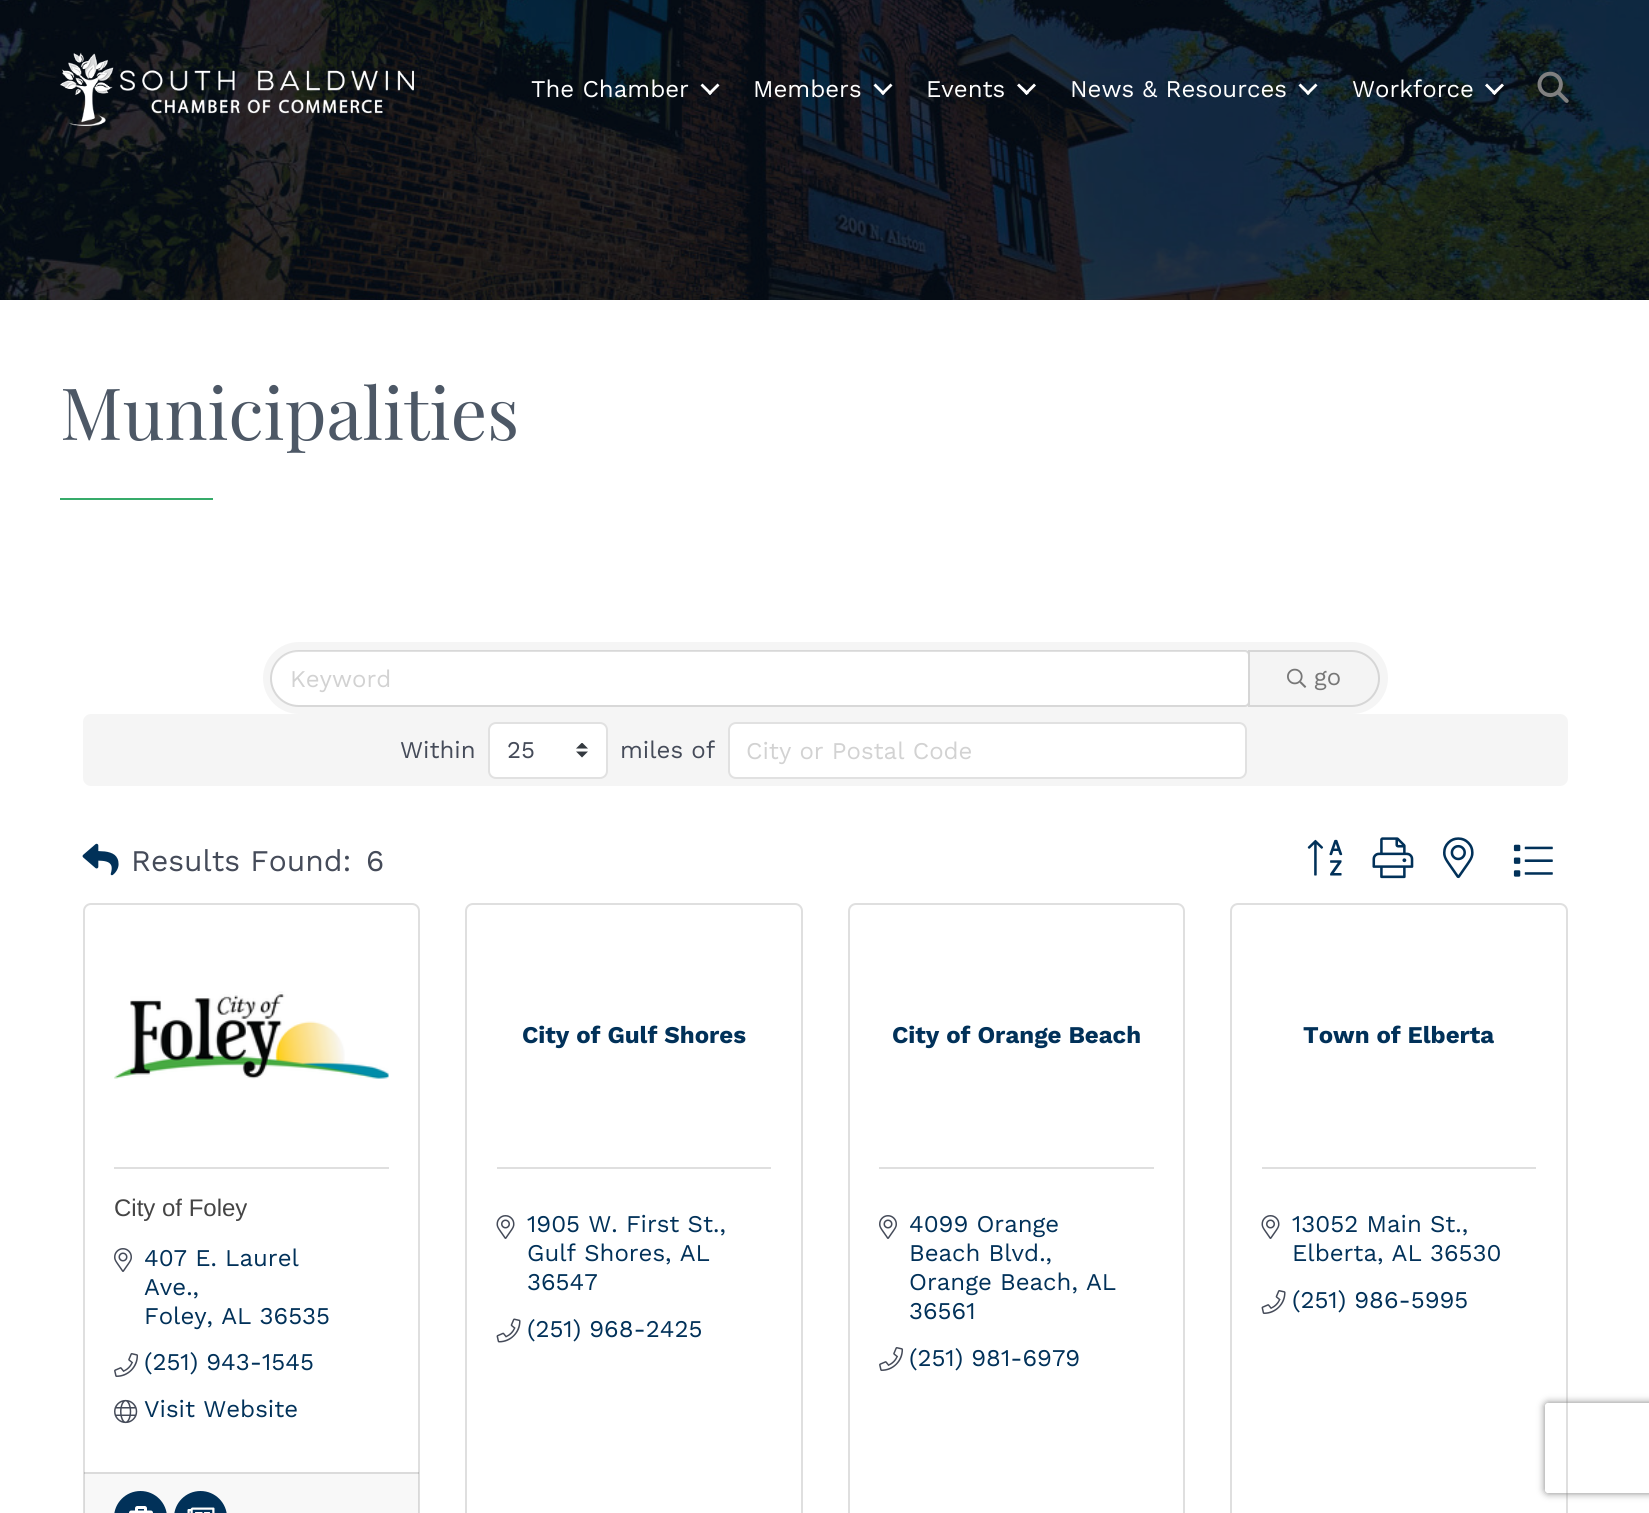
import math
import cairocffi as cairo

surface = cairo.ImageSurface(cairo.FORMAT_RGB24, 1649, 1513)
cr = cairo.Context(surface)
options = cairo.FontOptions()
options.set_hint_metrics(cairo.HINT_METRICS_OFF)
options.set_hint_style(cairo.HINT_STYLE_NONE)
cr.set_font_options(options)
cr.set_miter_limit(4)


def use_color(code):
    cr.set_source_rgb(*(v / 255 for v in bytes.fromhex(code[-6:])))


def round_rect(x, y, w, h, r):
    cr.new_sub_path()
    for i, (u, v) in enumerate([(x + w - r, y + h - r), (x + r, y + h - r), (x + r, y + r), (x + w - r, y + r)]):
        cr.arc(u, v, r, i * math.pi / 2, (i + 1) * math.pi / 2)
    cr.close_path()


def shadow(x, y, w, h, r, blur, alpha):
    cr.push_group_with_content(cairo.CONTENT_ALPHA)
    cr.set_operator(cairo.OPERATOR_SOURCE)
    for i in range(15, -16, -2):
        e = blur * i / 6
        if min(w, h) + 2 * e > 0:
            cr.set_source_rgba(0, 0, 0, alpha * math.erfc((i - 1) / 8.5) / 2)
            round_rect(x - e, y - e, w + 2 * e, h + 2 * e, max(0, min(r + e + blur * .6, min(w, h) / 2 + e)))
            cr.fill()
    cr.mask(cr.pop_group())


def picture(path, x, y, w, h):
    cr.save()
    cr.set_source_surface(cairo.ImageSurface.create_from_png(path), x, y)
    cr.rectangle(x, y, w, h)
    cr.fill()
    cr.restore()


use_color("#ffffff")
cr.paint()
picture("img3.png", 0, 0, 1649, 300)
picture("img1.png", 60, 52, 354, 74)
cr.select_font_face("Work Sans")
cr.set_font_size(24)
use_color("#ffffff")
cr.move_to(531, 97)
cr.show_text("The Chamber")
cr.new_path()
cr.move_to(717.5, 83.5)
cr.line_to(719.5, 85.5)
cr.line_to(710, 95)
cr.line_to(708, 93)
cr.close_path()
cr.fill()
cr.new_path()
cr.move_to(702.5, 83.5)
cr.line_to(712, 93)
cr.line_to(710, 95)
cr.line_to(700.5, 85.5)
cr.close_path()
cr.fill()
cr.move_to(753, 97)
cr.show_text("Members")
cr.new_path()
cr.move_to(890.5, 83.5)
cr.line_to(892.5, 85.5)
cr.line_to(883, 95)
cr.line_to(881, 93)
cr.close_path()
cr.fill()
cr.new_path()
cr.move_to(875.5, 83.5)
cr.line_to(885, 93)
cr.line_to(883, 95)
cr.line_to(873.5, 85.5)
cr.close_path()
cr.fill()
cr.move_to(926, 97)
cr.show_text("Events")
cr.new_path()
cr.move_to(1034, 83.5)
cr.line_to(1036, 85.5)
cr.line_to(1026.5, 95)
cr.line_to(1024.5, 93)
cr.close_path()
cr.fill()
cr.new_path()
cr.move_to(1019, 83.5)
cr.line_to(1029, 93)
cr.line_to(1026.5, 95)
cr.line_to(1017, 85.5)
cr.close_path()
cr.fill()
cr.move_to(1070, 97)
cr.show_text("News & Resources")
cr.new_path()
cr.move_to(1315.5, 83.5)
cr.line_to(1317.5, 85.5)
cr.line_to(1308, 95)
cr.line_to(1306, 93)
cr.close_path()
cr.fill()
cr.new_path()
cr.move_to(1300.5, 83.5)
cr.line_to(1310, 93)
cr.line_to(1308, 95)
cr.line_to(1298.5, 85.5)
cr.close_path()
cr.fill()
cr.move_to(1352, 97)
cr.show_text("Workforce")
cr.new_path()
cr.move_to(1502, 83.5)
cr.line_to(1504, 85.5)
cr.line_to(1494.5, 95)
cr.line_to(1492, 93)
cr.close_path()
cr.fill()
cr.new_path()
cr.move_to(1487, 83.5)
cr.line_to(1496.5, 93)
cr.line_to(1494.5, 95)
cr.line_to(1485, 85.5)
cr.close_path()
cr.fill()
picture("img2.png", 1537, 71, 32, 32)
cr.select_font_face("Playfair Display")
cr.set_font_size(72)
use_color("#4d5866")
cr.move_to(60, 440)
cr.show_text("Municipalities")
use_color("#36ab6a")
cr.rectangle(60, 498, 153, 2)
cr.fill()
use_color("#f5f5f5")
round_rect(263, 642, 1125, 72, 36)
cr.fill()
use_color("#ffffff")
cr.new_path()
cr.move_to(299, 651)
cr.line_to(1245, 651)
cr.curve_to(1246.5, 651, 1248, 652.5, 1248, 654)
cr.line_to(1248, 702)
cr.curve_to(1248, 703.5, 1246.5, 705, 1245, 705)
cr.line_to(299, 705)
cr.curve_to(284, 705, 272, 693, 272, 678)
cr.curve_to(272, 663, 284, 651, 299, 651)
cr.close_path()
cr.fill()
cr.new_path()
cr.move_to(298.5, 651)
cr.line_to(1245, 651)
cr.curve_to(1247, 651, 1249, 653, 1249, 655)
cr.line_to(1249, 702)
cr.curve_to(1249, 704, 1247, 706, 1245, 706)
cr.line_to(298.5, 706)
cr.curve_to(283.5, 706, 271, 693.5, 271, 678.5)
cr.curve_to(271, 663.5, 283.5, 651, 298.5, 651)
cr.close_path()
cr.set_source_rgba(0, 0, 0, 0.12)
cr.stroke()
cr.select_font_face("Work Sans")
cr.set_font_size(24)
use_color("#d2d2d2")
cr.move_to(290, 687)
cr.show_text("Keyword")
use_color("#f4f4f4")
cr.new_path()
cr.move_to(1249, 651)
cr.line_to(1351.5, 651)
cr.curve_to(1366.5, 651, 1379, 663.5, 1379, 678.5)
cr.curve_to(1379, 693.5, 1366.5, 706, 1351.5, 706)
cr.line_to(1249, 706)
cr.close_path()
cr.fill_preserve()
use_color("#d6d6d6")
cr.stroke()
picture("img4.png", 1287, 668, 20, 20)
use_color("#777777")
cr.move_to(1314, 685)
cr.show_text("go")
use_color("#f5f5f5")
round_rect(83, 714, 1485, 72, 8)
cr.fill()
use_color("#454b59")
cr.move_to(400, 758)
cr.show_text("Within")
use_color("#ffffff")
round_rect(488, 722, 120, 57, 8)
cr.fill()
picture("img5.png", 576, 743, 12, 15)
round_rect(489, 723, 118, 55, 7)
cr.set_source_rgba(0, 0, 0, 0.12)
cr.stroke()
use_color("#454b59")
cr.move_to(507, 758)
cr.show_text("25")
cr.move_to(620, 758)
cr.show_text("miles of")
use_color("#ffffff")
round_rect(728, 722, 519, 57, 8)
cr.fill()
round_rect(729, 723, 517, 55, 7)
cr.set_source_rgba(0, 0, 0, 0.12)
cr.stroke()
use_color("#d2d2d2")
cr.move_to(746, 759)
cr.show_text("City or Postal Code")
picture("img6.png", 82, 843, 37, 33)
cr.set_font_size(30)
use_color("#454b59")
cr.move_to(131, 871)
cr.show_text("Results Found:")
cr.move_to(366, 871)
cr.show_text("6")
picture("img7.png", 1307, 839, 36, 37)
picture("img8.png", 1372, 837, 42, 42)
picture("img9.png", 1443, 837, 31, 42)
picture("img10.png", 1513, 844, 40, 33)
round_rect(84, 904, 335, 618, 7)
use_color("#dfdfdf")
cr.stroke()
picture("img11.png", 114, 991, 275, 88)
cr.rectangle(114, 1167, 275, 2)
cr.fill()
cr.select_font_face("Liberation Sans")
cr.set_font_size(24)
use_color("#444444")
cr.move_to(114, 1216)
cr.show_text("City of Foley")
picture("img12.png", 114, 1248, 18, 24)
cr.select_font_face("Work Sans")
use_color("#013159")
cr.move_to(144, 1266)
cr.show_text("407 E. Laurel")
cr.move_to(144, 1295)
cr.show_text("Ave.,")
cr.move_to(144, 1324)
cr.show_text("Foley, AL 36535")
picture("img13.png", 114, 1353, 25, 24)
cr.move_to(144, 1370)
cr.show_text("(251) 943-1545")
picture("img14.png", 114, 1399, 24, 25)
cr.move_to(144, 1417)
cr.show_text("Visit Website")
cr.set_source_rgba(0, 0, 0, 0.03)
cr.rectangle(84, 1472, 335, 41)
cr.fill()
cr.set_source_rgba(0, 0, 0, 0.12)
cr.rectangle(84, 1472, 335, 2)
cr.fill()
use_color("#013159")
round_rect(114, 1491, 53, 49, 26.5)
cr.fill()
picture("img15.png", 129, 1506, 24, 7)
round_rect(174, 1491, 53, 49, 26.5)
cr.fill()
picture("img16.png", 187, 1507, 28, 6)
round_rect(466, 904, 336, 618, 7)
use_color("#dfdfdf")
cr.stroke()
cr.select_font_face("Work Sans", cairo.FONT_SLANT_NORMAL, cairo.FONT_WEIGHT_BOLD)
use_color("#013159")
cr.move_to(522, 1043)
cr.show_text("City of Gulf Shores")
use_color("#dfdfdf")
cr.rectangle(497, 1167, 274, 2)
cr.fill()
picture("img17.png", 496, 1215, 19, 24)
cr.select_font_face("Work Sans")
use_color("#013159")
cr.move_to(527, 1232)
cr.show_text("1905 W. First St.,")
cr.move_to(527, 1261)
cr.show_text("Gulf Shores, AL")
cr.move_to(527, 1290)
cr.show_text("36547")
picture("img18.png", 496, 1318, 25, 25)
cr.move_to(527, 1337)
cr.show_text("(251) 968-2425")
round_rect(849, 904, 335, 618, 7)
use_color("#dfdfdf")
cr.stroke()
cr.select_font_face("Work Sans", cairo.FONT_SLANT_NORMAL, cairo.FONT_WEIGHT_BOLD)
use_color("#013159")
cr.move_to(892, 1043)
cr.show_text("City of Orange Beach")
use_color("#dfdfdf")
cr.rectangle(879, 1167, 275, 2)
cr.fill()
picture("img12.png", 879, 1215, 18, 24)
cr.select_font_face("Work Sans")
use_color("#013159")
cr.move_to(909, 1232)
cr.show_text("4099 Orange")
cr.move_to(909, 1261)
cr.show_text("Beach Blvd.,")
cr.move_to(909, 1290)
cr.show_text("Orange Beach, AL")
cr.move_to(909, 1319)
cr.show_text("36561")
picture("img13.png", 879, 1347, 25, 24)
cr.move_to(909, 1366)
cr.show_text("(251) 981-6979")
round_rect(1231, 904, 336, 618, 7)
use_color("#dfdfdf")
cr.stroke()
cr.select_font_face("Work Sans", cairo.FONT_SLANT_NORMAL, cairo.FONT_WEIGHT_BOLD)
use_color("#013159")
cr.move_to(1303, 1043)
cr.show_text("Town of Elberta")
use_color("#dfdfdf")
cr.rectangle(1262, 1167, 274, 2)
cr.fill()
picture("img17.png", 1261, 1215, 19, 24)
cr.select_font_face("Work Sans")
use_color("#013159")
cr.move_to(1292, 1232)
cr.show_text("13052 Main St.,")
cr.move_to(1292, 1261)
cr.show_text("Elberta, AL 36530")
picture("img19.png", 1261, 1290, 25, 24)
cr.move_to(1292, 1308)
cr.show_text("(251) 986-5995")
cr.save()
cr.set_fill_rule(cairo.FILL_RULE_EVEN_ODD)
cr.new_path()
cr.move_to(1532, 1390)
cr.line_to(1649, 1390)
cr.line_to(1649, 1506)
cr.line_to(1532, 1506)
cr.close_path()
cr.move_to(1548, 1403)
cr.line_to(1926, 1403)
cr.curve_to(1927.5, 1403, 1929, 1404.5, 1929, 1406)
cr.line_to(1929, 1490)
cr.curve_to(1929, 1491.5, 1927.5, 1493, 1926, 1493)
cr.line_to(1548, 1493)
cr.curve_to(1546.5, 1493, 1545, 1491.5, 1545, 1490)
cr.line_to(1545, 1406)
cr.curve_to(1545, 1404.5, 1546.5, 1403, 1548, 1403)
cr.close_path()
cr.clip()
use_color("#808080")
shadow(1545, 1403, 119, 90, 3, 4, 1)
cr.restore()
surface.write_to_png("result.png")
